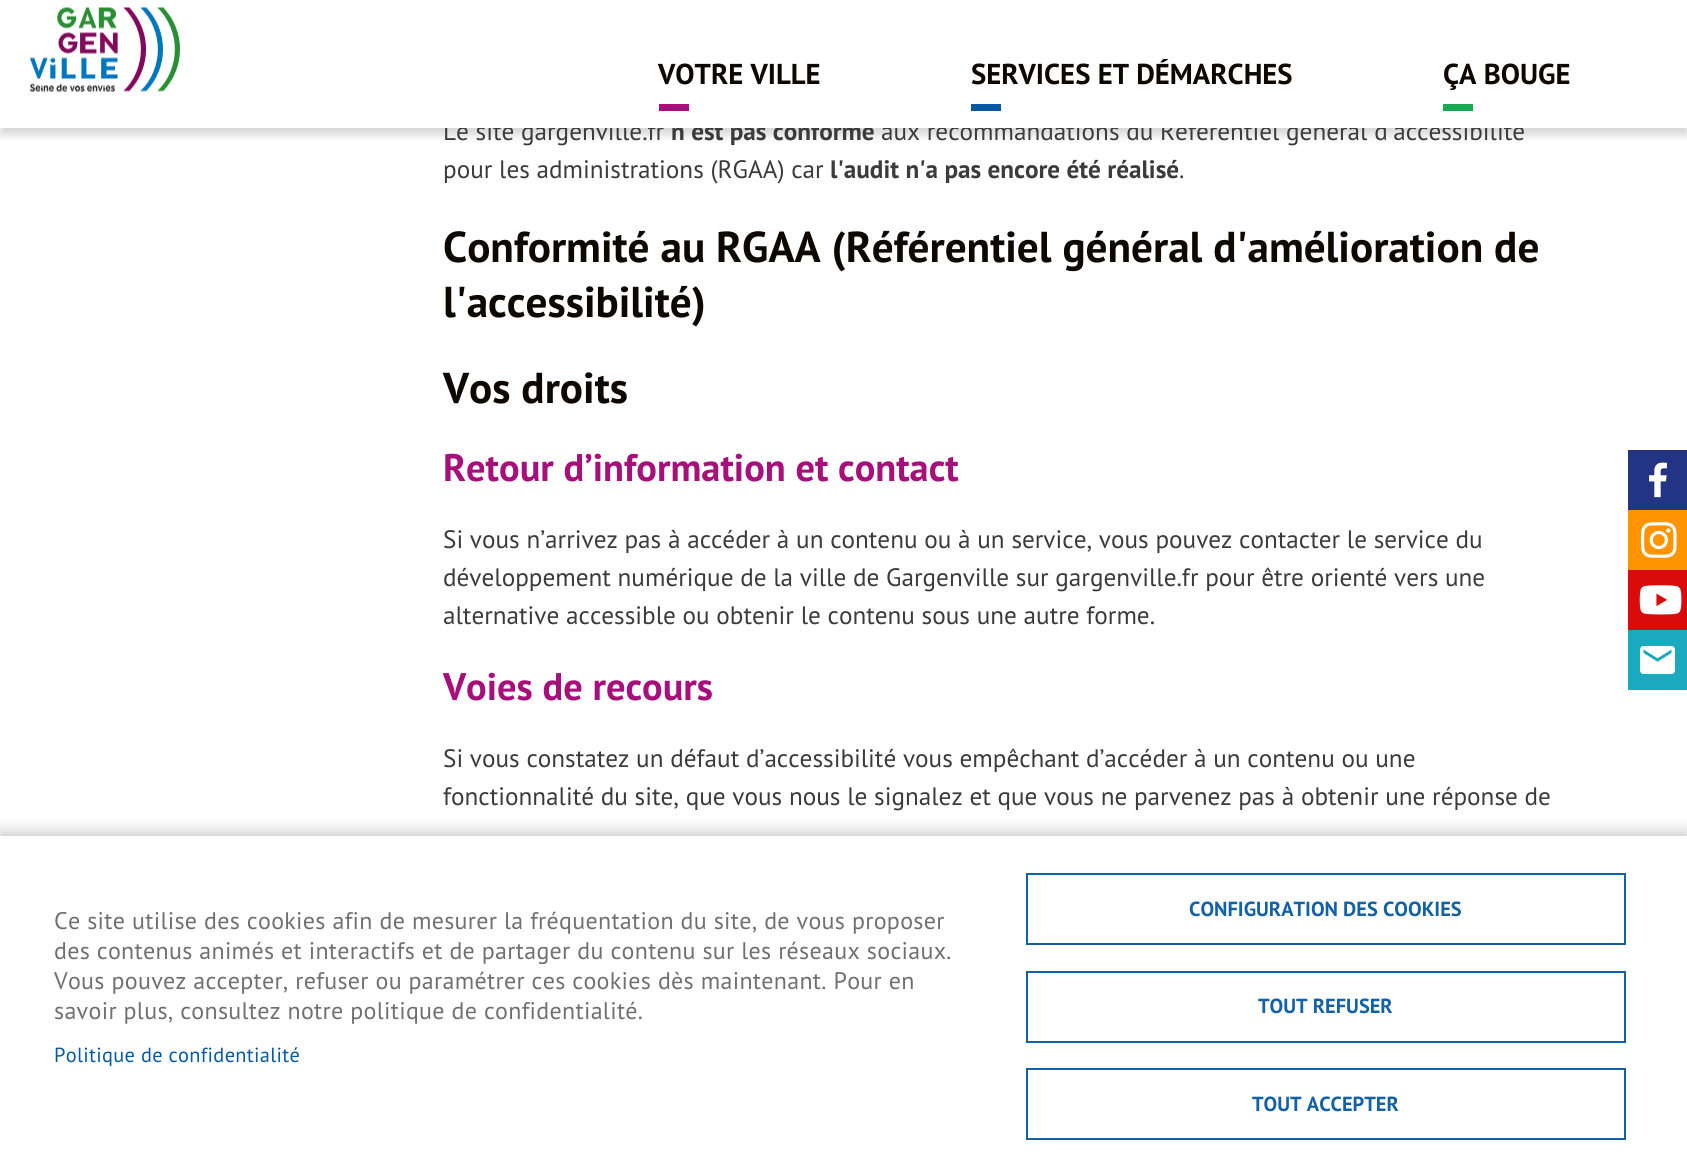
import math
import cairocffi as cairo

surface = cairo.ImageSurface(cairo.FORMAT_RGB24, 1687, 1175)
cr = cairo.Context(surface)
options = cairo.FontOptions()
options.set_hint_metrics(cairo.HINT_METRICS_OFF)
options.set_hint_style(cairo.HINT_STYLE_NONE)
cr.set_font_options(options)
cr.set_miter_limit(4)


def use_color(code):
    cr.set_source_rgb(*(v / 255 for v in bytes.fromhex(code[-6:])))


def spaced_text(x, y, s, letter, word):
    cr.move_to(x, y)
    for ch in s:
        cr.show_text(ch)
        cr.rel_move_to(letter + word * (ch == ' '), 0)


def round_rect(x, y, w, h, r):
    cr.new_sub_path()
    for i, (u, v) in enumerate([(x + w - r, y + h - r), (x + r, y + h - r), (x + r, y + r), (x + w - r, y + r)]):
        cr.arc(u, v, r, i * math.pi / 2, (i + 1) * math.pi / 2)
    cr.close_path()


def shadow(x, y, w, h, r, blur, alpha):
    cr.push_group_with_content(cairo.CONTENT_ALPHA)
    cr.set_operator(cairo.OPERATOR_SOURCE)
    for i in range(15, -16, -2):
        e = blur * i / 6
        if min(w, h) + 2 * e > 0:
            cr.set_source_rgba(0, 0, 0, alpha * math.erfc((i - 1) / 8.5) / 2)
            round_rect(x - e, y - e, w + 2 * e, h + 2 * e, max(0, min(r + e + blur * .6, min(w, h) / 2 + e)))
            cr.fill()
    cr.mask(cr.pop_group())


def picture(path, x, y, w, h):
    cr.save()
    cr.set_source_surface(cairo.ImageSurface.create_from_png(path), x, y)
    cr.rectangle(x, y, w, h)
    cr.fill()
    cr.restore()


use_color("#ffffff")
cr.paint()
use_color("#000000")
shadow(0, 8, 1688, 127, 0, 4.5, 0.16)
cr.select_font_face("PT Sans")
cr.set_font_size(25.2)
use_color("#3b3b3b")
cr.move_to(443, 140)
cr.show_text("Le site gargenville.fr")
cr.select_font_face("PT Sans", cairo.FONT_SLANT_NORMAL, cairo.FONT_WEIGHT_BOLD)
cr.move_to(671, 140)
cr.show_text("n'est pas conforme")
cr.select_font_face("PT Sans")
cr.move_to(881, 140)
cr.show_text("aux recommandations du Référentiel général d'accessibilité")
use_color("#ffffff")
cr.rectangle(0, 1, 1687, 127)
cr.fill()
picture("img1.png", 30, 7, 150, 85)
cr.select_font_face("PT Sans", cairo.FONT_SLANT_NORMAL, cairo.FONT_WEIGHT_BOLD)
cr.set_font_size(28.75)
use_color("#0d0802")
cr.move_to(658, 84)
cr.show_text("VOTRE VILLE")
use_color("#a70f7b")
cr.rectangle(659, 104, 30, 7)
cr.fill()
use_color("#0d0802")
cr.move_to(971, 84)
cr.show_text("SERVICES ET DÉMARCHES")
use_color("#075aa2")
cr.rectangle(971, 104, 30, 7)
cr.fill()
use_color("#0d0802")
cr.move_to(1443, 84)
cr.show_text("ÇA BOUGE")
use_color("#18a952")
cr.rectangle(1443, 104, 30, 7)
cr.fill()
cr.select_font_face("PT Sans")
cr.set_font_size(25.2)
use_color("#3b3b3b")
cr.move_to(443, 178)
cr.show_text("pour les administrations (RGAA) car")
cr.select_font_face("PT Sans", cairo.FONT_SLANT_NORMAL, cairo.FONT_WEIGHT_BOLD)
cr.move_to(830, 178)
cr.show_text("l'audit n'a pas encore été réalisé")
cr.select_font_face("PT Sans")
cr.move_to(1179, 178)
cr.show_text(".")
cr.select_font_face("PT Sans", cairo.FONT_SLANT_NORMAL, cairo.FONT_WEIGHT_BOLD)
cr.set_font_size(43.2)
use_color("#0d0802")
cr.move_to(443, 262)
cr.show_text("Conformité au RGAA (Référentiel général d'amélioration de")
cr.move_to(443, 317)
cr.show_text("l'accessibilité)")
cr.move_to(443, 403)
cr.show_text("Vos droits")
cr.set_font_size(38.4)
use_color("#a70f7b")
cr.move_to(443, 481)
cr.show_text("Retour d’information et contact")
cr.select_font_face("PT Sans")
cr.set_font_size(25.2)
use_color("#3b3b3b")
cr.move_to(443, 548)
cr.show_text("Si vous n’arrivez pas à accéder à un contenu ou à un service, vous pouvez contacter le service du")
cr.move_to(443, 586)
cr.show_text("développement numérique de la ville de Gargenville sur gargenville.fr pour être orienté vers une")
cr.move_to(443, 624)
cr.show_text("alternative accessible ou obtenir le contenu sous une autre forme.")
cr.select_font_face("PT Sans", cairo.FONT_SLANT_NORMAL, cairo.FONT_WEIGHT_BOLD)
cr.set_font_size(38.4)
use_color("#a70f7b")
cr.move_to(443, 700)
cr.show_text("Voies de recours")
cr.select_font_face("PT Sans")
cr.set_font_size(25.2)
use_color("#3b3b3b")
cr.move_to(443, 767)
cr.show_text("Si vous constatez un défaut d’accessibilité vous empêchant d’accéder à un contenu ou une")
cr.move_to(443, 805)
cr.show_text("fonctionnalité du site, que vous nous le signalez et que vous ne parvenez pas à obtenir une réponse de")
use_color("#223483")
cr.rectangle(1628, 450, 59, 60)
cr.fill()
picture("img2.png", 1649, 462, 18, 36)
use_color("#ff9300")
cr.rectangle(1628, 510, 59, 60)
cr.fill()
picture("img3.png", 1641, 522, 36, 36)
use_color("#d90b0b")
cr.rectangle(1628, 570, 59, 60)
cr.fill()
picture("img4.png", 1639, 585, 43, 30)
use_color("#1aaabf")
cr.rectangle(1628, 630, 59, 60)
cr.fill()
picture("img5.png", 1640, 646, 35, 28)
use_color("#000000")
shadow(0, 831, 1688, 341, 0, 7.5, 0.2)
use_color("#ffffff")
cr.rectangle(0, 836, 1687, 339)
cr.fill()
cr.set_font_size(24)
use_color("#707070")
spaced_text(54, 929, "Ce site utilise des cookies afin de mesurer la fréquentation du site, de vous proposer", 0.3, 0)
spaced_text(54, 959, "des contenus animés et interactifs et de partager du contenu sur les réseaux sociaux.", 0.3, 0)
spaced_text(54, 989, "Vous pouvez accepter, refuser ou paramétrer ces cookies dès maintenant. Pour en", 0.3, 0)
spaced_text(54, 1019, "savoir plus, consultez notre politique de confidentialité.", 0.3, 0)
cr.set_font_size(20.4)
use_color("#075aa2")
spaced_text(54, 1062, "Politique de confidentialité", 0.3, 0)
cr.rectangle(1027, 874, 598, 70)
use_color("#1362a7")
cr.stroke()
cr.select_font_face("PT Sans", cairo.FONT_SLANT_NORMAL, cairo.FONT_WEIGHT_BOLD)
cr.move_to(1189, 916)
cr.show_text("CONFIGURATION DES COOKIES")
cr.rectangle(1027, 972, 598, 70)
cr.stroke()
cr.move_to(1258, 1013)
cr.show_text("TOUT REFUSER")
cr.rectangle(1027, 1069, 598, 70)
cr.stroke()
cr.move_to(1252, 1111)
cr.show_text("TOUT ACCEPTER")
surface.write_to_png("result.png")
